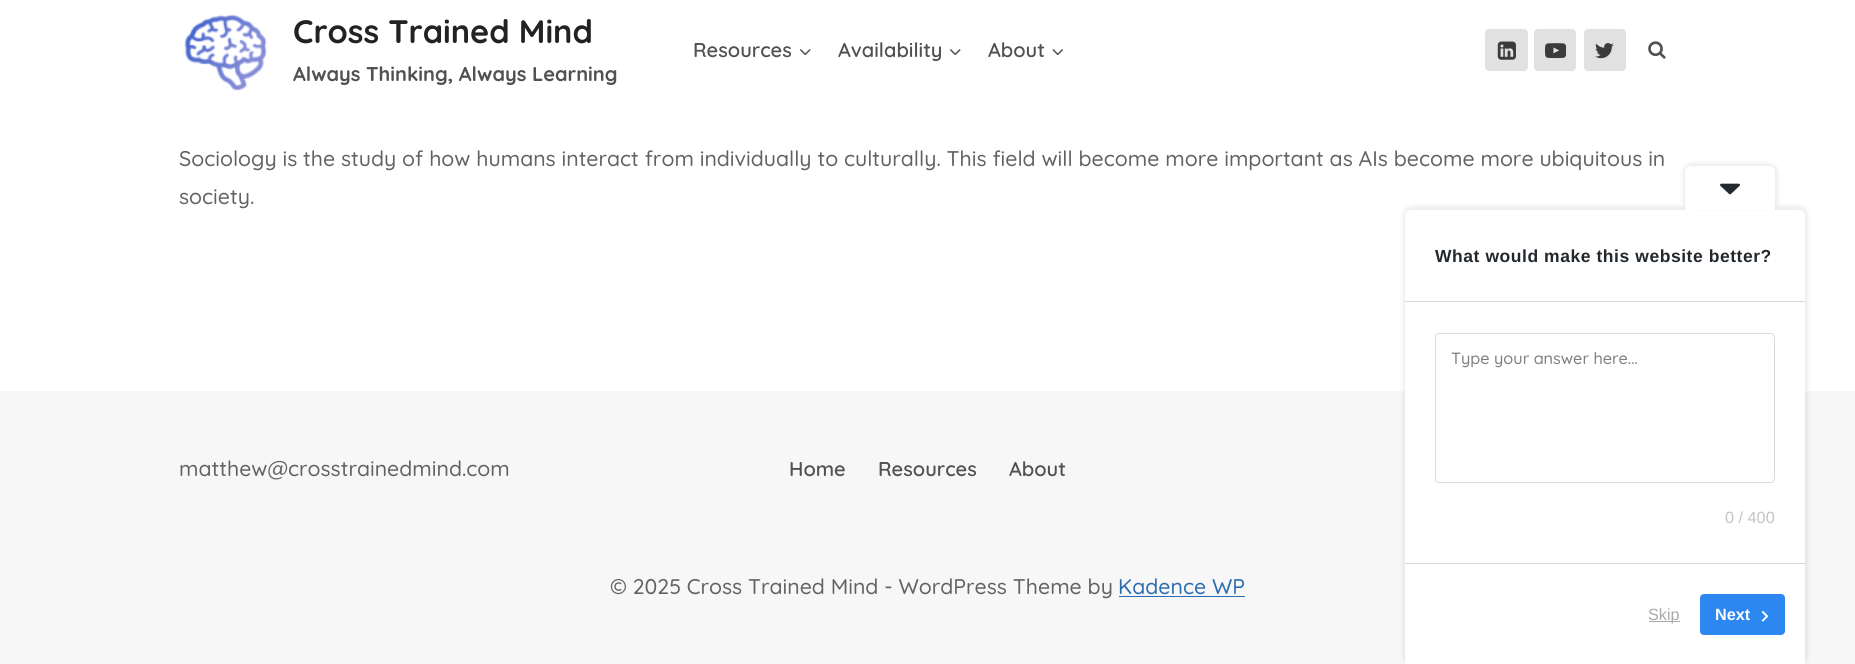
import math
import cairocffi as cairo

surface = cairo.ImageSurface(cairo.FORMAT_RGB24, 1855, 664)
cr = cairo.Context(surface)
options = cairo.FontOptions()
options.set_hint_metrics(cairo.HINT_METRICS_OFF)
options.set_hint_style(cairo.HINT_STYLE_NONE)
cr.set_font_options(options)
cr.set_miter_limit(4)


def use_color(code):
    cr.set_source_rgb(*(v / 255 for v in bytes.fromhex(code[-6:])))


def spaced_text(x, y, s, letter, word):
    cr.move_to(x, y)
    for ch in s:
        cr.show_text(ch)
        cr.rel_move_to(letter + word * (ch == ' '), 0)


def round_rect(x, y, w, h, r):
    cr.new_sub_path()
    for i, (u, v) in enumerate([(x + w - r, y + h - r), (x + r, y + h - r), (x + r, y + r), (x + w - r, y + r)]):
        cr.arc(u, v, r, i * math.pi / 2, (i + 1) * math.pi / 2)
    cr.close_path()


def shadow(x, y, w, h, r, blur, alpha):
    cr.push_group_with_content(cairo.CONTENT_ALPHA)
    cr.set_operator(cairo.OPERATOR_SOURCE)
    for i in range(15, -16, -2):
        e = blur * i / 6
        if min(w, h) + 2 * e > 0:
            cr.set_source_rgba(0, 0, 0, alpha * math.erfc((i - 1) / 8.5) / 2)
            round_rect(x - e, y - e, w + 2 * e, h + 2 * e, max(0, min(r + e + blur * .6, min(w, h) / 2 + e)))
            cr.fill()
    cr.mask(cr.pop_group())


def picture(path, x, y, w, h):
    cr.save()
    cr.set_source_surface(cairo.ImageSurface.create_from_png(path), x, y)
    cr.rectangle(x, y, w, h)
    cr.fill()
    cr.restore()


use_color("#ffffff")
cr.paint()
picture("img1.png", 184, 14, 83, 77)
cr.select_font_face("Quicksand", cairo.FONT_SLANT_NORMAL, cairo.FONT_WEIGHT_BOLD)
cr.set_font_size(32.5)
use_color("#222222")
cr.move_to(293, 43)
cr.show_text("Cross Trained Mind")
cr.set_font_size(20)
use_color("#515151")
cr.move_to(293, 81)
cr.show_text("Always Thinking, Always Learning")
cr.select_font_face("Quicksand SemiBold")
cr.move_to(693, 57)
cr.show_text("Resources")
picture("img2.png", 800, 49, 11, 7)
cr.move_to(838, 57)
cr.show_text("Availability")
picture("img2.png", 950, 49, 11, 7)
cr.move_to(988, 57)
cr.show_text("About")
picture("img3.png", 1052, 49, 11, 7)
use_color("#e1e1e1")
round_rect(1485, 29, 43, 42, 4)
cr.fill()
picture("img4.png", 1497, 41, 19, 19)
round_rect(1534, 29, 42, 42, 4)
cr.fill()
picture("img5.png", 1545, 43, 21, 16)
round_rect(1584, 29, 42, 42, 4)
cr.fill()
picture("img6.png", 1595, 43, 19, 16)
picture("img7.png", 1648, 41, 18, 18)
cr.select_font_face("Quicksand Medium")
cr.set_font_size(21.25)
use_color("#626262")
cr.move_to(179, 166)
cr.show_text("Sociology is the study of how humans interact from individually to culturally. This field will become more important as AIs become more ubiquitous in")
cr.move_to(179, 204)
cr.show_text("society.")
use_color("#f7f7f7")
cr.rectangle(0, 391, 1855, 273)
cr.fill()
use_color("#626262")
cr.move_to(179, 476)
cr.show_text("matthew@crosstrainedmind.com")
cr.select_font_face("Quicksand SemiBold")
cr.set_font_size(20)
use_color("#515151")
cr.move_to(789, 476)
cr.show_text("Home")
cr.move_to(878, 476)
cr.show_text("Resources")
cr.move_to(1009, 476)
cr.show_text("About")
cr.select_font_face("Quicksand Medium")
cr.set_font_size(21.25)
use_color("#626262")
cr.move_to(610, 594)
cr.show_text("© 2025 Cross Trained Mind - WordPress Theme by")
use_color("#2b6cb0")
cr.move_to(1118, 594)
cr.show_text("Kadence WP")
cr.rectangle(1119, 596, 126, 1)
cr.fill()
use_color("#000000")
shadow(1403, 206, 405, 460, 9, 2, 0.07)
use_color("#ffffff")
cr.new_path()
cr.move_to(1411, 210)
cr.line_to(1799, 210)
cr.curve_to(1802.5, 210, 1805, 212.5, 1805, 216)
cr.line_to(1805, 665)
cr.line_to(1405, 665)
cr.line_to(1405, 216)
cr.curve_to(1405, 212.5, 1407.5, 210, 1411, 210)
cr.close_path()
cr.fill()
cr.save()
cr.new_path()
cr.move_to(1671.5, 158)
cr.line_to(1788.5, 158)
cr.line_to(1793, 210.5)
cr.line_to(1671.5, 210.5)
cr.close_path()
cr.clip()
use_color("#000000")
shadow(1683, 163, 95, 48, 9, 2, 0.07)
cr.restore()
cr.new_path()
cr.move_to(1691, 166)
cr.line_to(1769, 166)
cr.curve_to(1772.5, 166, 1775, 168.5, 1775, 172)
cr.line_to(1775, 210)
cr.line_to(1685, 210)
cr.line_to(1685, 172)
cr.curve_to(1685, 168.5, 1687.5, 166, 1691, 166)
cr.close_path()
cr.fill()
picture("img8.png", 1720, 183, 20, 12)
cr.select_font_face("Liberation Sans", cairo.FONT_SLANT_NORMAL, cairo.FONT_WEIGHT_BOLD)
cr.set_font_size(17.5)
use_color("#23282d")
spaced_text(1435, 262, "What would make this website better?", 0.55, 0)
use_color("#d9d9d9")
cr.rectangle(1405, 301, 400, 1)
cr.fill()
cr.rectangle(1405, 563, 400, 1)
cr.fill()
round_rect(1435.5, 333.5, 339, 149, 3.5)
use_color("#dadada")
cr.set_line_width(1)
cr.stroke()
cr.select_font_face("Quicksand Medium")
cr.set_font_size(16.25)
use_color("#7e7e7e")
cr.move_to(1451, 364)
cr.show_text("Type your answer here...")
cr.select_font_face("Liberation Sans")
use_color("#c4c4c4")
cr.move_to(1725, 523)
cr.show_text("0 / 400")
use_color("#aaaaaa")
cr.rectangle(1649, 621, 31, 1)
cr.fill()
cr.move_to(1648, 620)
cr.show_text("Skip")
use_color("#2d87f1")
round_rect(1700, 594, 85, 41, 4)
cr.fill()
cr.select_font_face("Liberation Sans", cairo.FONT_SLANT_NORMAL, cairo.FONT_WEIGHT_BOLD)
use_color("#ffffff")
cr.move_to(1715, 620)
cr.show_text("Next")
picture("img9.png", 1761, 611, 8, 11)
surface.write_to_png("result.png")
